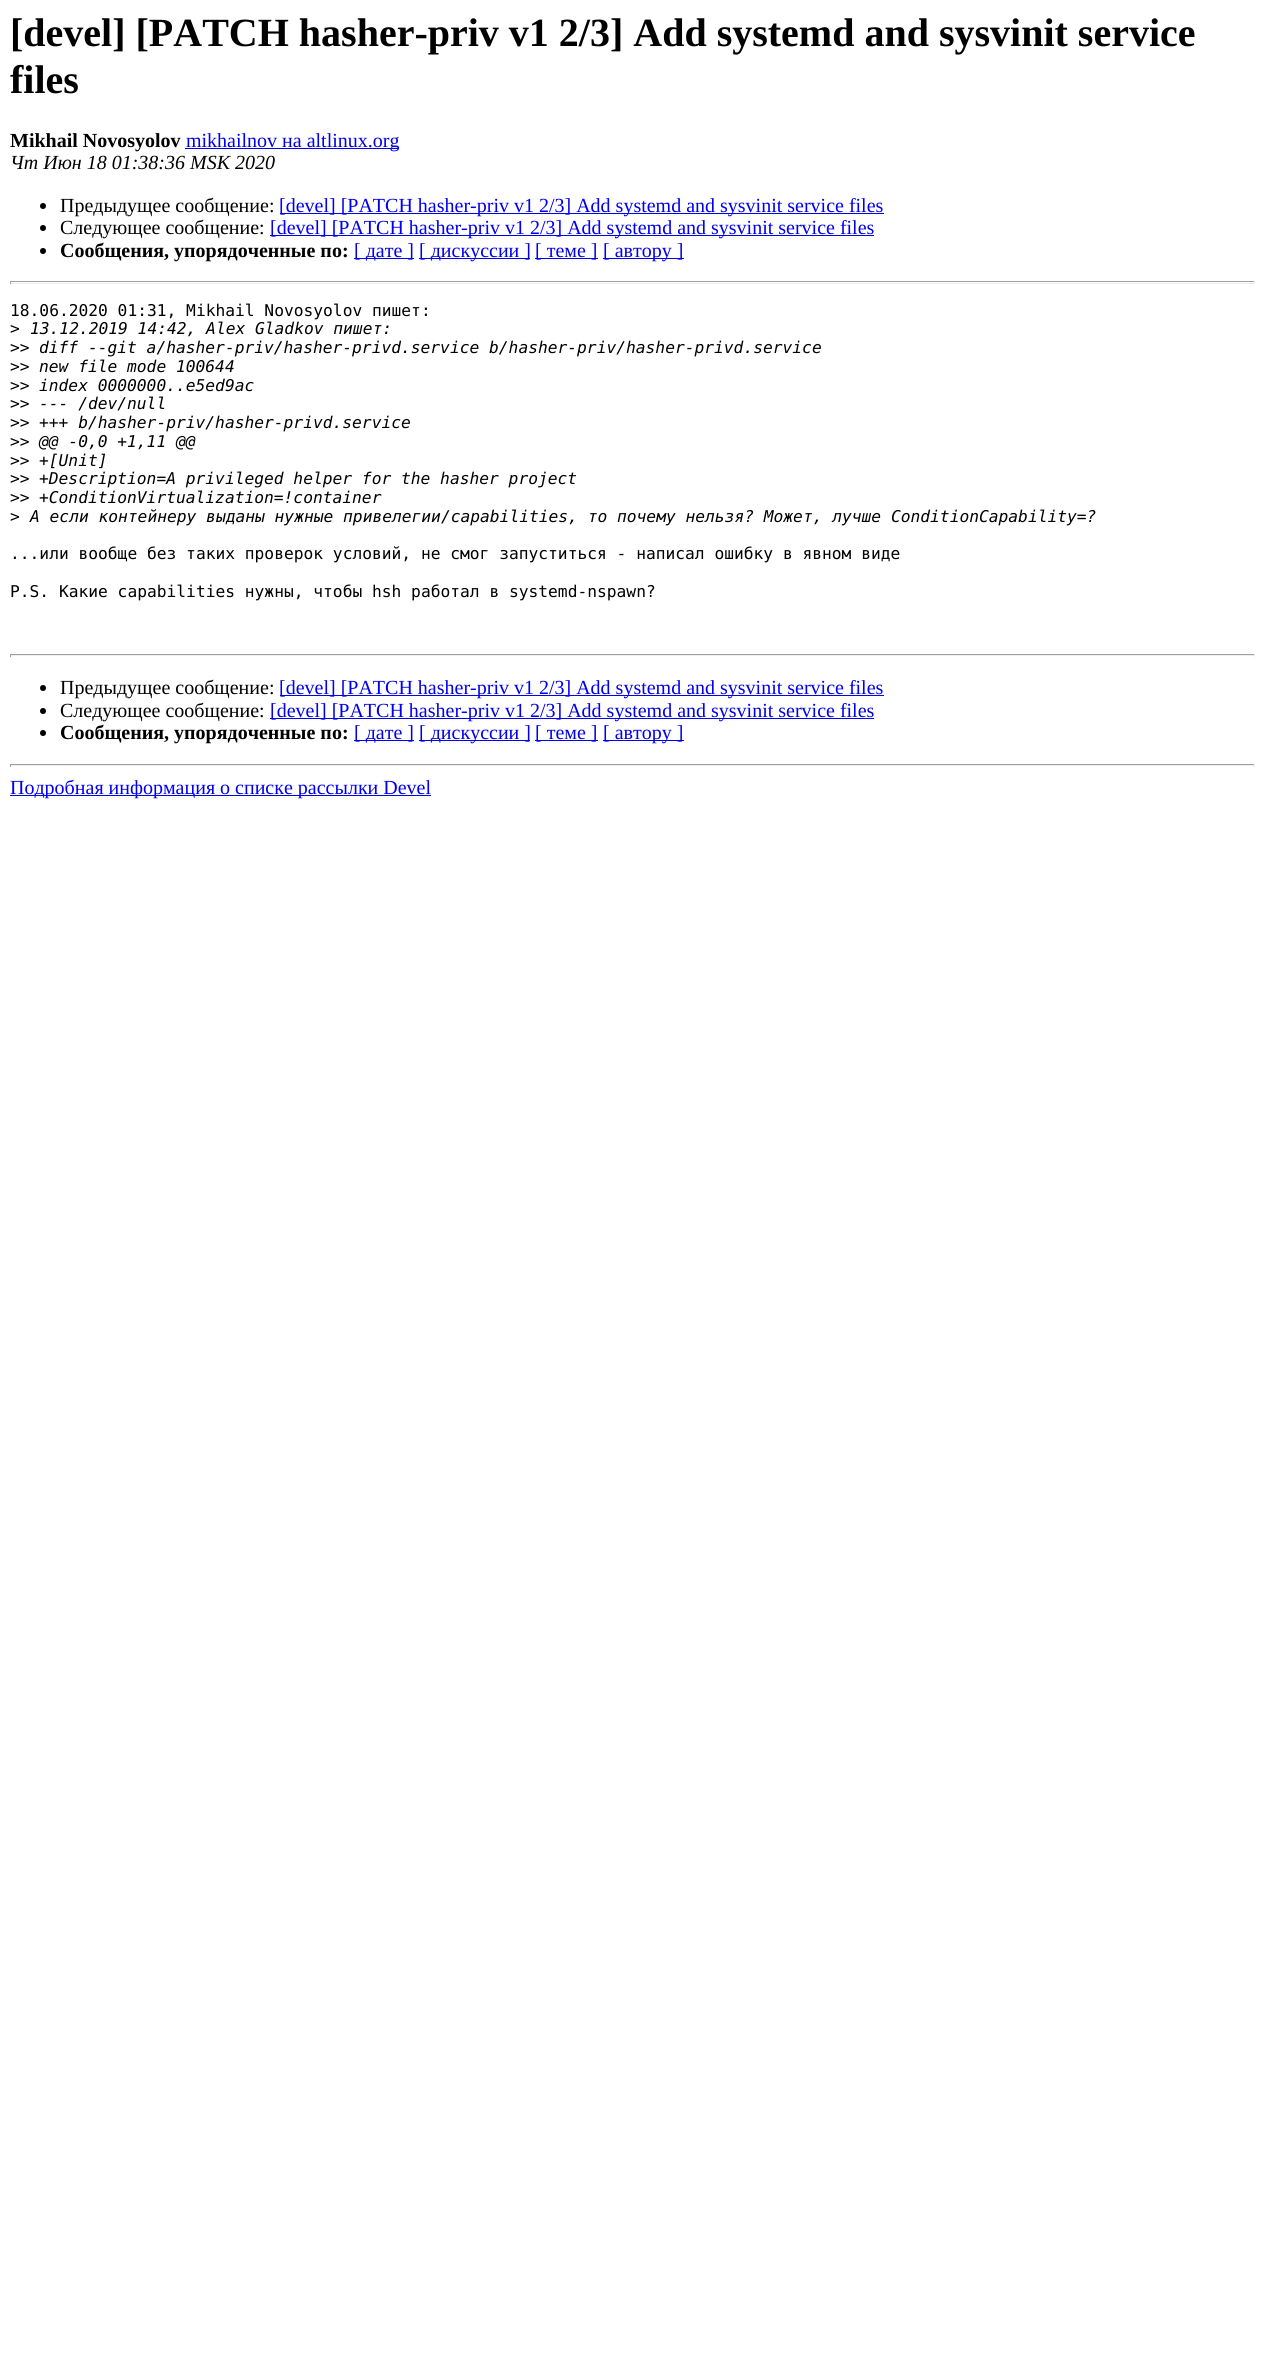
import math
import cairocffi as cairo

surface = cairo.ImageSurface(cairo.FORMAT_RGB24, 1264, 2363)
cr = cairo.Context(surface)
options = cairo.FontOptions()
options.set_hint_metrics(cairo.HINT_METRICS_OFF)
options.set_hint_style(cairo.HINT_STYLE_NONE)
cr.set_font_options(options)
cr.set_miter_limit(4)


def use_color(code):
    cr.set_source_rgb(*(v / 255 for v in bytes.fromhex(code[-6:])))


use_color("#ffffff")
cr.paint()
cr.select_font_face("Liberation Serif", cairo.FONT_SLANT_NORMAL, cairo.FONT_WEIGHT_BOLD)
cr.set_font_size(40)
use_color("#000000")
cr.move_to(10, 46)
cr.show_text("[devel] [PATCH hasher-priv v1 2/3] Add systemd and sysvinit service")
cr.move_to(10, 93)
cr.show_text("files")
cr.set_font_size(20)
cr.move_to(10, 147)
cr.show_text("Mikhail Novosyolov")
use_color("#0000ee")
cr.rectangle(185, 148, 214, 1)
cr.fill()
cr.select_font_face("Liberation Serif")
cr.move_to(186, 147)
cr.show_text("mikhailnov на altlinux.org")
cr.select_font_face("Liberation Serif", cairo.FONT_SLANT_ITALIC)
use_color("#000000")
cr.move_to(10, 169)
cr.show_text("Чт Июн 18 01:38:36 MSK 2020")
cr.new_path()
cr.arc(43, 206, 3, 0, 2 * math.pi)
cr.fill()
cr.select_font_face("Liberation Serif")
cr.move_to(60, 212)
cr.show_text("Предыдущее сообщение:")
use_color("#0000ee")
cr.rectangle(280, 213, 604, 1)
cr.fill()
cr.move_to(279, 212)
cr.show_text("[devel] [PATCH hasher-priv v1 2/3] Add systemd and sysvinit service files")
use_color("#000000")
cr.new_path()
cr.arc(43, 228, 3, 0, 2 * math.pi)
cr.fill()
cr.move_to(60, 234)
cr.show_text("Следующее сообщение:")
use_color("#0000ee")
cr.rectangle(270, 235, 604, 1)
cr.fill()
cr.move_to(270, 234)
cr.show_text("[devel] [PATCH hasher-priv v1 2/3] Add systemd and sysvinit service files")
use_color("#000000")
cr.new_path()
cr.arc(43, 251, 3, 0, 2 * math.pi)
cr.fill()
cr.select_font_face("Liberation Serif", cairo.FONT_SLANT_NORMAL, cairo.FONT_WEIGHT_BOLD)
cr.move_to(60, 257)
cr.show_text("Сообщения, упорядоченные по:")
use_color("#0000ee")
cr.rectangle(354, 258, 60, 1)
cr.fill()
cr.select_font_face("Liberation Serif")
cr.move_to(354, 257)
cr.show_text("[ дате ]")
cr.rectangle(419, 258, 111, 1)
cr.fill()
cr.move_to(419, 257)
cr.show_text("[ дискуссии ]")
cr.rectangle(535, 258, 63, 1)
cr.fill()
cr.move_to(535, 257)
cr.show_text("[ теме ]")
cr.rectangle(603, 258, 81, 1)
cr.fill()
cr.move_to(603, 257)
cr.show_text("[ автору ]")
use_color("#9f9f9f")
cr.rectangle(10, 281, 1245, 1)
cr.fill()
use_color("#eeeeee")
cr.rectangle(1254, 281, 1, 3)
cr.fill()
cr.rectangle(10, 283, 1245, 1)
cr.fill()
use_color("#9f9f9f")
cr.rectangle(10, 281, 1, 3)
cr.fill()
cr.select_font_face("DejaVu Sans Mono")
cr.set_font_size(16.25)
use_color("#000000")
cr.move_to(10, 316)
cr.show_text("18.06.2020 01:31, Mikhail Novosyolov пишет:")
cr.move_to(10, 334)
cr.show_text(">")
cr.select_font_face("DejaVu Sans Mono", cairo.FONT_SLANT_ITALIC)
cr.move_to(30, 334)
cr.show_text("13.12.2019 14:42, Alex Gladkov пишет:")
cr.select_font_face("DejaVu Sans Mono")
cr.move_to(10, 353)
cr.show_text(">>")
cr.select_font_face("DejaVu Sans Mono", cairo.FONT_SLANT_ITALIC)
cr.move_to(39, 353)
cr.show_text("diff --git a/hasher-priv/hasher-privd.service b/hasher-priv/hasher-privd.service")
cr.select_font_face("DejaVu Sans Mono")
cr.move_to(10, 372)
cr.show_text(">>")
cr.select_font_face("DejaVu Sans Mono", cairo.FONT_SLANT_ITALIC)
cr.move_to(39, 372)
cr.show_text("new file mode 100644")
cr.select_font_face("DejaVu Sans Mono")
cr.move_to(10, 391)
cr.show_text(">>")
cr.select_font_face("DejaVu Sans Mono", cairo.FONT_SLANT_ITALIC)
cr.move_to(39, 391)
cr.show_text("index 0000000..e5ed9ac")
cr.select_font_face("DejaVu Sans Mono")
cr.move_to(10, 409)
cr.show_text(">>")
cr.select_font_face("DejaVu Sans Mono", cairo.FONT_SLANT_ITALIC)
cr.move_to(39, 409)
cr.show_text("--- /dev/null")
cr.select_font_face("DejaVu Sans Mono")
cr.move_to(10, 428)
cr.show_text(">>")
cr.select_font_face("DejaVu Sans Mono", cairo.FONT_SLANT_ITALIC)
cr.move_to(39, 428)
cr.show_text("+++ b/hasher-priv/hasher-privd.service")
cr.select_font_face("DejaVu Sans Mono")
cr.move_to(10, 447)
cr.show_text(">>")
cr.select_font_face("DejaVu Sans Mono", cairo.FONT_SLANT_ITALIC)
cr.move_to(39, 447)
cr.show_text("@@ -0,0 +1,11 @@")
cr.select_font_face("DejaVu Sans Mono")
cr.move_to(10, 466)
cr.show_text(">>")
cr.select_font_face("DejaVu Sans Mono", cairo.FONT_SLANT_ITALIC)
cr.move_to(39, 466)
cr.show_text("+[Unit]")
cr.select_font_face("DejaVu Sans Mono")
cr.move_to(10, 484)
cr.show_text(">>")
cr.select_font_face("DejaVu Sans Mono", cairo.FONT_SLANT_ITALIC)
cr.move_to(39, 484)
cr.show_text("+Description=A privileged helper for the hasher project")
cr.select_font_face("DejaVu Sans Mono")
cr.move_to(10, 503)
cr.show_text(">>")
cr.select_font_face("DejaVu Sans Mono", cairo.FONT_SLANT_ITALIC)
cr.move_to(39, 503)
cr.show_text("+ConditionVirtualization=!container")
cr.select_font_face("DejaVu Sans Mono")
cr.move_to(10, 522)
cr.show_text(">")
cr.select_font_face("DejaVu Sans Mono", cairo.FONT_SLANT_ITALIC)
cr.move_to(30, 522)
cr.show_text("А если контейнеру выданы нужные привелегии/capabilities, то почему нельзя? Может, лучше ConditionCapability=?")
cr.select_font_face("DejaVu Sans Mono")
cr.move_to(10, 559)
cr.show_text("...или вообще без таких проверок условий, не смог запуститься - написал ошибку в явном виде")
cr.move_to(10, 597)
cr.show_text("P.S. Какие capabilities нужны, чтобы hsh работал в systemd-nspawn?")
use_color("#9f9f9f")
cr.rectangle(10, 654, 1245, 1)
cr.fill()
use_color("#eeeeee")
cr.rectangle(1254, 654, 1, 3)
cr.fill()
cr.rectangle(10, 655, 1245, 1)
cr.fill()
use_color("#9f9f9f")
cr.rectangle(10, 654, 1, 3)
cr.fill()
use_color("#000000")
cr.arc(43, 688, 3, 0, 2 * math.pi)
cr.fill()
cr.select_font_face("Liberation Serif")
cr.set_font_size(20)
cr.move_to(60, 694)
cr.show_text("Предыдущее сообщение:")
use_color("#0000ee")
cr.rectangle(280, 695, 604, 1)
cr.fill()
cr.move_to(279, 694)
cr.show_text("[devel] [PATCH hasher-priv v1 2/3] Add systemd and sysvinit service files")
use_color("#000000")
cr.new_path()
cr.arc(43, 711, 3, 0, 2 * math.pi)
cr.fill()
cr.move_to(60, 717)
cr.show_text("Следующее сообщение:")
use_color("#0000ee")
cr.rectangle(270, 718, 604, 1)
cr.fill()
cr.move_to(270, 717)
cr.show_text("[devel] [PATCH hasher-priv v1 2/3] Add systemd and sysvinit service files")
use_color("#000000")
cr.new_path()
cr.arc(43, 733, 3, 0, 2 * math.pi)
cr.fill()
cr.select_font_face("Liberation Serif", cairo.FONT_SLANT_NORMAL, cairo.FONT_WEIGHT_BOLD)
cr.move_to(60, 739)
cr.show_text("Сообщения, упорядоченные по:")
use_color("#0000ee")
cr.rectangle(354, 740, 60, 1)
cr.fill()
cr.select_font_face("Liberation Serif")
cr.move_to(354, 739)
cr.show_text("[ дате ]")
cr.rectangle(419, 740, 111, 1)
cr.fill()
cr.move_to(419, 739)
cr.show_text("[ дискуссии ]")
cr.rectangle(535, 740, 63, 1)
cr.fill()
cr.move_to(535, 739)
cr.show_text("[ теме ]")
cr.rectangle(603, 740, 81, 1)
cr.fill()
cr.move_to(603, 739)
cr.show_text("[ автору ]")
use_color("#9f9f9f")
cr.rectangle(10, 764, 1245, 1)
cr.fill()
use_color("#eeeeee")
cr.rectangle(1254, 764, 1, 3)
cr.fill()
cr.rectangle(10, 765, 1245, 1)
cr.fill()
use_color("#9f9f9f")
cr.rectangle(10, 764, 1, 3)
cr.fill()
use_color("#0000ee")
cr.rectangle(10, 795, 421, 1)
cr.fill()
cr.move_to(10, 794)
cr.show_text("Подробная информация о списке рассылки Devel")
surface.write_to_png("result.png")
